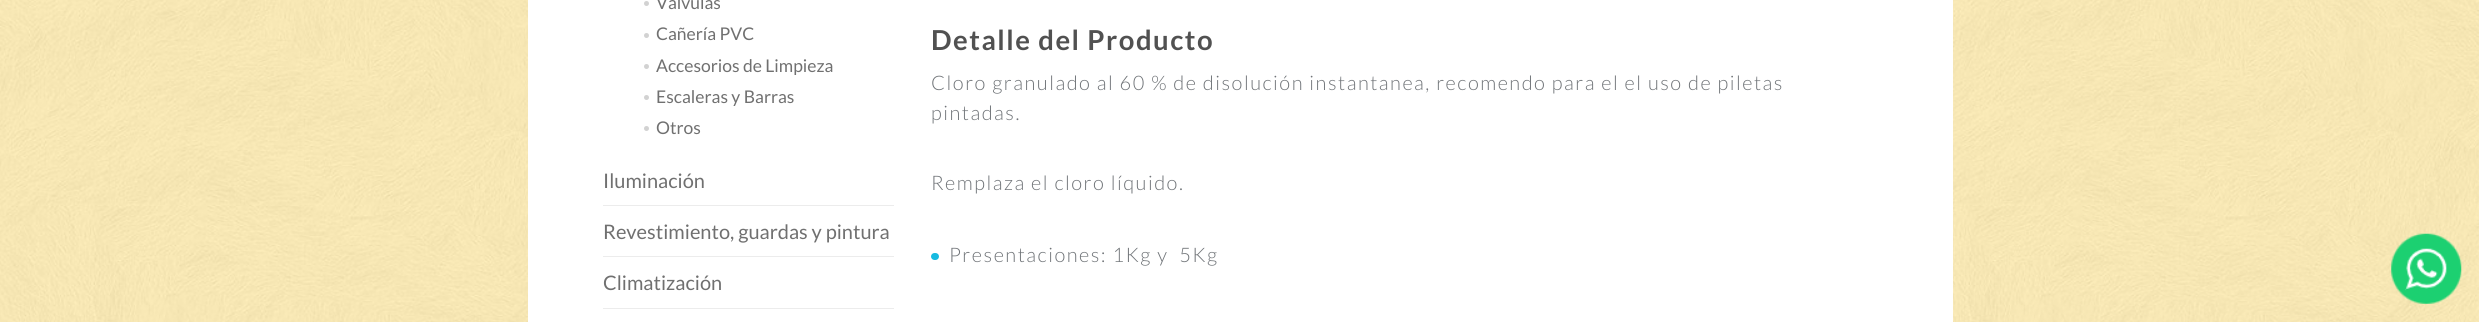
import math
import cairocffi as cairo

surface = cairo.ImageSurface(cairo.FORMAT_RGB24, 2479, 322)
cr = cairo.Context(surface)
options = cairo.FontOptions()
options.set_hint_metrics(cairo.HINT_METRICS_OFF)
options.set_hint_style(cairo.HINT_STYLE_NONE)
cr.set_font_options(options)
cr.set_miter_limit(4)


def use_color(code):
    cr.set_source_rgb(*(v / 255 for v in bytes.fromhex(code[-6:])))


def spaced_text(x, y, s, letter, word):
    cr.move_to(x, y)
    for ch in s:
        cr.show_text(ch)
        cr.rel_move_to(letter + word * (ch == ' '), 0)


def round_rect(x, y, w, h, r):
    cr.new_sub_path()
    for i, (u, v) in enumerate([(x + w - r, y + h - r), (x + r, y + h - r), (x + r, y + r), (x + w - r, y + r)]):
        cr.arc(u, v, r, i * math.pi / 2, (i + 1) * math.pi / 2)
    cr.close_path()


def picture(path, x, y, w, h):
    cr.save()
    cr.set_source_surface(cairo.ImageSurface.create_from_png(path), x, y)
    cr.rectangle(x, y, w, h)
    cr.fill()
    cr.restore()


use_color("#ffffff")
cr.paint()
picture("img1.png", 0, 0, 2479, 322)
use_color("#ffffff")
cr.rectangle(528, 0, 1425, 322)
cr.fill()
use_color("#d2d2d2")
cr.arc(646.5, 3.5, 2.5, 0, 2 * math.pi)
cr.fill()
cr.select_font_face("Lato")
cr.set_font_size(17.5)
use_color("#707070")
cr.move_to(656, 9)
cr.show_text("Válvulas")
use_color("#d2d2d2")
cr.new_path()
cr.arc(646.5, 35.5, 2.5, 0, 2 * math.pi)
cr.fill()
use_color("#707070")
cr.move_to(656, 40)
cr.show_text("Cañería PVC")
use_color("#d2d2d2")
cr.new_path()
cr.arc(646.5, 66.5, 2.5, 0, 2 * math.pi)
cr.fill()
use_color("#707070")
cr.move_to(656, 72)
cr.show_text("Accesorios de Limpieza")
use_color("#d2d2d2")
cr.new_path()
cr.arc(646.5, 97.5, 2.5, 0, 2 * math.pi)
cr.fill()
use_color("#707070")
cr.move_to(656, 103)
cr.show_text("Escaleras y Barras")
use_color("#d2d2d2")
cr.new_path()
cr.arc(646.5, 128.5, 2.5, 0, 2 * math.pi)
cr.fill()
use_color("#707070")
cr.move_to(656, 134)
cr.show_text("Otros")
use_color("#ececec")
cr.rectangle(603, 205, 291, 1)
cr.fill()
cr.set_font_size(20)
use_color("#707070")
cr.move_to(603, 188)
cr.show_text("Iluminación")
use_color("#ececec")
cr.rectangle(603, 256, 291, 1)
cr.fill()
use_color("#707070")
cr.move_to(603, 239)
cr.show_text("Revestimiento, guardas y pintura")
use_color("#ececec")
cr.rectangle(603, 308, 291, 1)
cr.fill()
use_color("#707070")
cr.move_to(603, 290)
cr.show_text("Climatización")
cr.select_font_face("Lato", cairo.FONT_SLANT_NORMAL, cairo.FONT_WEIGHT_BOLD)
cr.set_font_size(27.5)
use_color("#515151")
spaced_text(931, 50, "Detalle del Producto", 1.5, 0)
cr.select_font_face("Lato Light")
cr.set_font_size(20)
use_color("#707478")
spaced_text(931, 90, "Cloro granulado al 60 % de disolución instantanea, recomendo para el el uso de piletas", 1.5, 0)
spaced_text(931, 120, "pintadas.", 1.5, 0)
spaced_text(931, 190, "Remplaza el cloro líquido.", 1.5, 0)
use_color("#17bae0")
round_rect(931, 253, 8, 7, 3.5)
cr.fill()
use_color("#707478")
spaced_text(949, 262, "Presentaciones: 1Kg y  5Kg", 1.5, 0)
picture("img2.png", 2391, 233, 71, 71)
surface.write_to_png("result.png")
